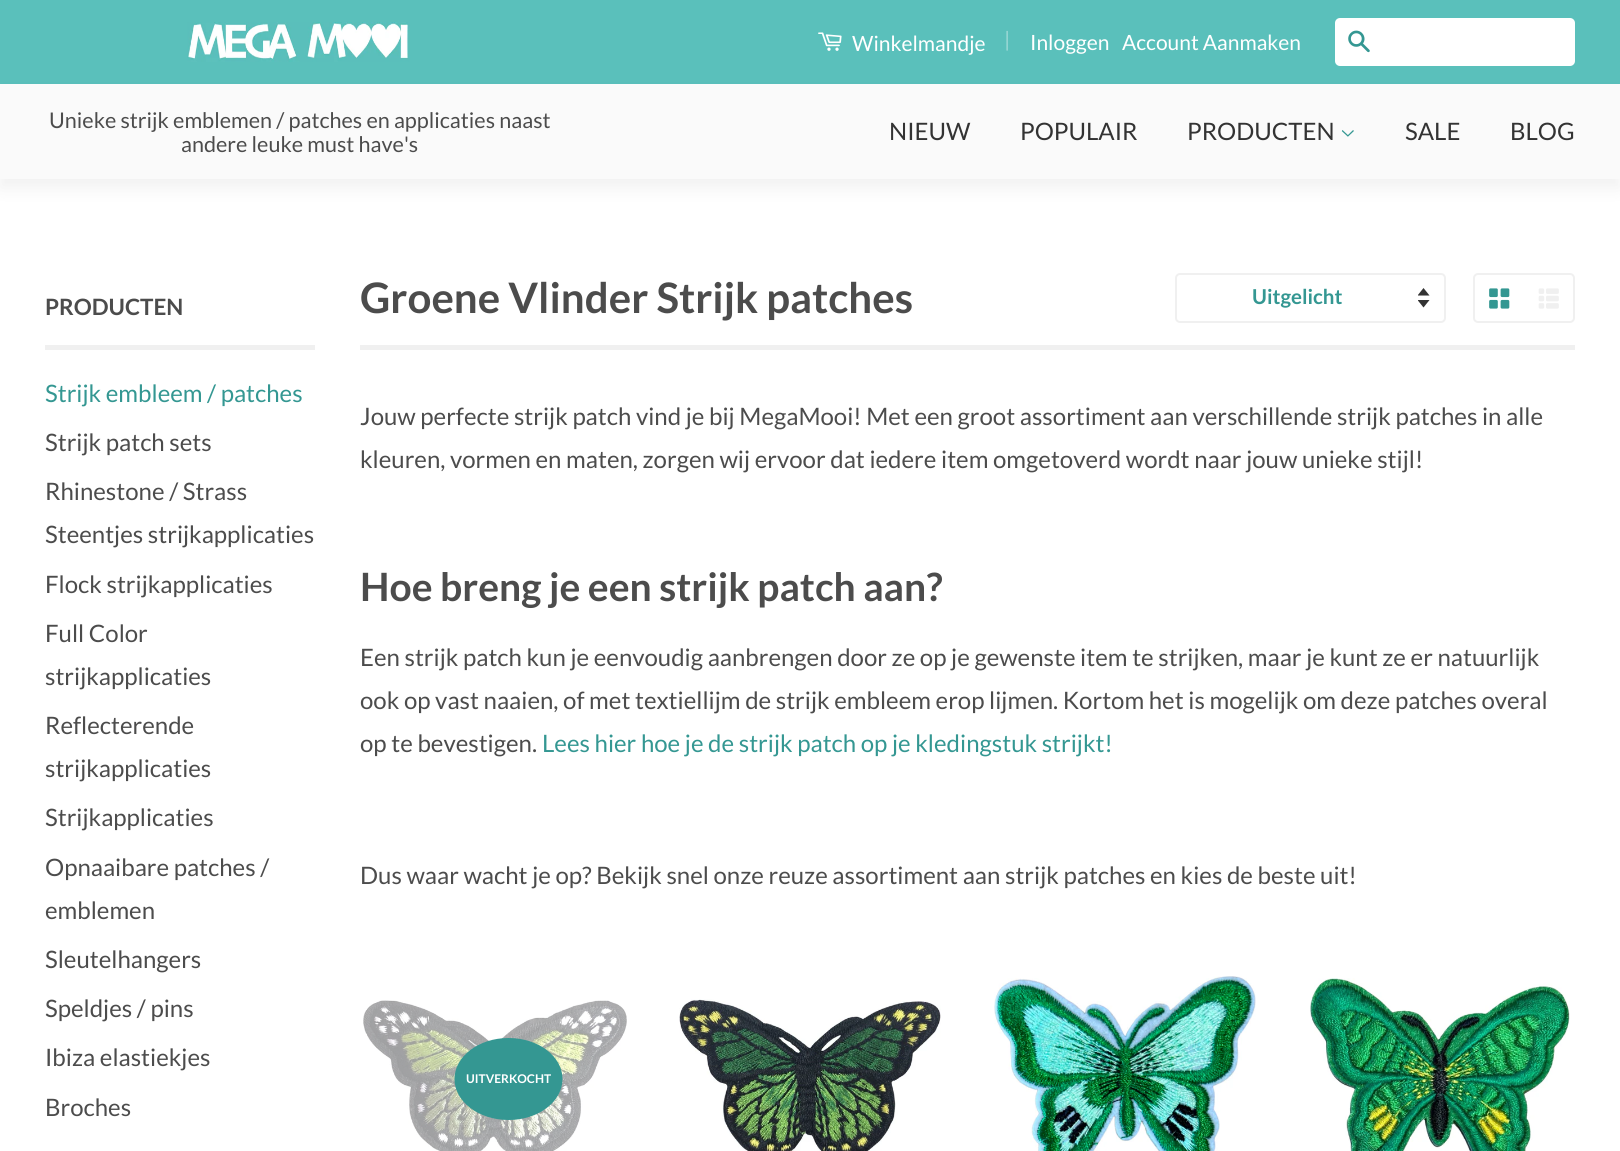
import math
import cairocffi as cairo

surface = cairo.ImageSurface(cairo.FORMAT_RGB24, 1620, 1151)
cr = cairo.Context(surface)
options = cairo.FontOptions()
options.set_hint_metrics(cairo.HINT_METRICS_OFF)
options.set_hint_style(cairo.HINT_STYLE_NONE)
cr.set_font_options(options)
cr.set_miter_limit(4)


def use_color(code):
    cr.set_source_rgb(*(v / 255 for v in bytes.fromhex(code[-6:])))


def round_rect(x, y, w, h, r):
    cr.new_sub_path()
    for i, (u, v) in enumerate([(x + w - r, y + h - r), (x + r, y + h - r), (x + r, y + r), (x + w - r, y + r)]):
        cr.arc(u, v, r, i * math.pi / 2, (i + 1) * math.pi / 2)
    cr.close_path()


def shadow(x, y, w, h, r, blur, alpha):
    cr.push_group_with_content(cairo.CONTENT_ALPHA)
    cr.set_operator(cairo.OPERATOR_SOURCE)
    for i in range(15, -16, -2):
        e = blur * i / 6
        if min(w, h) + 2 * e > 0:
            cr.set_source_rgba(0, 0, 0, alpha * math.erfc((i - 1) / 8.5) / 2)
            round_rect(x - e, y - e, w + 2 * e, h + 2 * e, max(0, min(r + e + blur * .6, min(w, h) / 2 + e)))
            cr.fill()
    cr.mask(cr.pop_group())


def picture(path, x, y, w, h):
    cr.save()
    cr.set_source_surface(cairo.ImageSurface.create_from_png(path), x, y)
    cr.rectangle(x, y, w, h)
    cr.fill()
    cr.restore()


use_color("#ffffff")
cr.paint()
use_color("#5ac0bb")
cr.rectangle(0, 0, 1620, 84)
cr.fill()
picture("img1.png", 187, 22, 223, 40)
picture("img2.png", 818, 32, 24, 19)
cr.select_font_face("Lato")
cr.set_font_size(21)
use_color("#ffffff")
cr.move_to(852, 51)
cr.show_text("Winkelmandje")
use_color("#9cd9d6")
cr.move_to(1004, 47)
cr.show_text("|")
use_color("#ffffff")
cr.move_to(1030, 50)
cr.show_text("Inloggen")
cr.move_to(1122, 50)
cr.show_text("Account Aanmaken")
use_color("#000000")
shadow(0, 93, 1620, 95, 0, 9, 0.06)
use_color("#ffffff")
round_rect(1335, 18, 240, 48, 5)
cr.fill()
picture("img3.png", 1348, 30, 22, 23)
use_color("#fafafa")
cr.rectangle(0, 84, 1620, 95)
cr.fill()
cr.set_font_size(21.6)
use_color("#4c4c4c")
cr.move_to(49, 128)
cr.show_text("Unieke strijk emblemen / patches en applicaties naast")
cr.move_to(181, 152)
cr.show_text("andere leuke must have's")
cr.set_font_size(24)
use_color("#333333")
cr.move_to(889, 140)
cr.show_text("NIEUW")
cr.move_to(1020, 140)
cr.show_text("POPULAIR")
cr.move_to(1187, 140)
cr.show_text("PRODUCTEN")
picture("img4.png", 1341, 130, 13, 7)
cr.move_to(1405, 140)
cr.show_text("SALE")
cr.move_to(1510, 140)
cr.show_text("BLOG")
use_color("#f0f0f0")
cr.rectangle(45, 345, 270, 5)
cr.fill()
cr.select_font_face("Lato", cairo.FONT_SLANT_NORMAL, cairo.FONT_WEIGHT_BOLD)
cr.set_font_size(22.5)
use_color("#4c4c4c")
cr.move_to(45, 315)
cr.show_text("PRODUCTEN")
cr.select_font_face("Lato")
cr.set_font_size(24)
use_color("#349792")
cr.move_to(45, 402)
cr.show_text("Strijk embleem / patches")
use_color("#4c4c4c")
cr.move_to(45, 451)
cr.show_text("Strijk patch sets")
cr.move_to(45, 500)
cr.show_text("Rhinestone / Strass")
cr.move_to(45, 543)
cr.show_text("Steentjes strijkapplicaties")
cr.move_to(45, 593)
cr.show_text("Flock strijkapplicaties")
cr.move_to(45, 642)
cr.show_text("Full Color")
cr.move_to(45, 685)
cr.show_text("strijkapplicaties")
cr.move_to(45, 734)
cr.show_text("Reflecterende")
cr.move_to(45, 777)
cr.show_text("strijkapplicaties")
cr.move_to(45, 826)
cr.show_text("Strijkapplicaties")
cr.move_to(45, 876)
cr.show_text("Opnaaibare patches /")
cr.move_to(45, 919)
cr.show_text("emblemen")
cr.move_to(45, 968)
cr.show_text("Sleutelhangers")
cr.move_to(45, 1017)
cr.show_text("Speldjes / pins")
cr.move_to(45, 1066)
cr.show_text("Ibiza elastiekjes")
cr.move_to(45, 1116)
cr.show_text("Broches")
use_color("#f0f0f0")
cr.rectangle(360, 345, 1215, 5)
cr.fill()
cr.select_font_face("Lato", cairo.FONT_SLANT_NORMAL, cairo.FONT_WEIGHT_BOLD)
cr.set_font_size(42)
use_color("#4c4c4c")
cr.move_to(360, 313)
cr.show_text("Groene Vlinder Strijk patches")
picture("img5.png", 1418, 288, 12, 20)
round_rect(1176, 274, 269, 48, 4)
use_color("#f0f0f0")
cr.stroke()
cr.set_font_size(20.5)
use_color("#349792")
cr.move_to(1252, 304)
cr.show_text("Uitgelicht")
round_rect(1474, 274, 100, 48, 4)
use_color("#f0f0f0")
cr.stroke()
picture("img6.png", 1489, 288, 21, 21)
picture("img7.png", 1538, 288, 21, 21)
cr.select_font_face("Lato")
cr.set_font_size(24)
use_color("#4c4c4c")
cr.move_to(360, 425)
cr.show_text("Jouw perfecte strijk patch vind je bij MegaMooi! Met een groot assortiment aan verschillende strijk patches in alle")
cr.move_to(360, 468)
cr.show_text("kleuren, vormen en maten, zorgen wij ervoor dat iedere item omgetoverd wordt naar jouw unieke stijl!")
cr.select_font_face("Lato", cairo.FONT_SLANT_NORMAL, cairo.FONT_WEIGHT_BOLD)
cr.set_font_size(39)
cr.move_to(360, 601)
cr.show_text("Hoe breng je een strijk patch aan?")
cr.select_font_face("Lato")
cr.set_font_size(24)
cr.move_to(360, 666)
cr.show_text("Een strijk patch kun je eenvoudig aanbrengen door ze op je gewenste item te strijken, maar je kunt ze er natuurlijk")
cr.move_to(360, 709)
cr.show_text("ook op vast naaien, of met textiellijm de strijk embleem erop lijmen. Kortom het is mogelijk om deze patches overal")
cr.move_to(360, 752)
cr.show_text("op te bevestigen.")
use_color("#349792")
cr.move_to(542, 752)
cr.show_text("Lees hier hoe je de strijk patch op je kledingstuk strijkt!")
use_color("#4c4c4c")
cr.move_to(360, 884)
cr.show_text("Dus waar wacht je op? Bekijk snel onze reuze assortiment aan strijk patches en kies de beste uit!")
picture("img8.png", 363, 1000, 264, 151)
use_color("#349792")
cr.new_path()
cr.move_to(508.5, 1038)
cr.curve_to(538.5, 1038, 562.5, 1056.5, 562.5, 1079)
cr.curve_to(562.5, 1101.5, 538.5, 1120, 508.5, 1120)
cr.curve_to(478.5, 1120, 454.5, 1101.5, 454.5, 1079)
cr.curve_to(454.5, 1056.5, 478.5, 1038, 508.5, 1038)
cr.close_path()
cr.fill()
cr.select_font_face("Lato", cairo.FONT_SLANT_NORMAL, cairo.FONT_WEIGHT_BOLD)
cr.set_font_size(12)
use_color("#ffffff")
cr.move_to(466, 1083)
cr.show_text("UITVERKOCHT")
picture("img9.png", 679, 999, 262, 152)
picture("img10.png", 994, 976, 262, 175)
picture("img11.png", 1310, 978, 260, 173)
surface.write_to_png("result.png")
